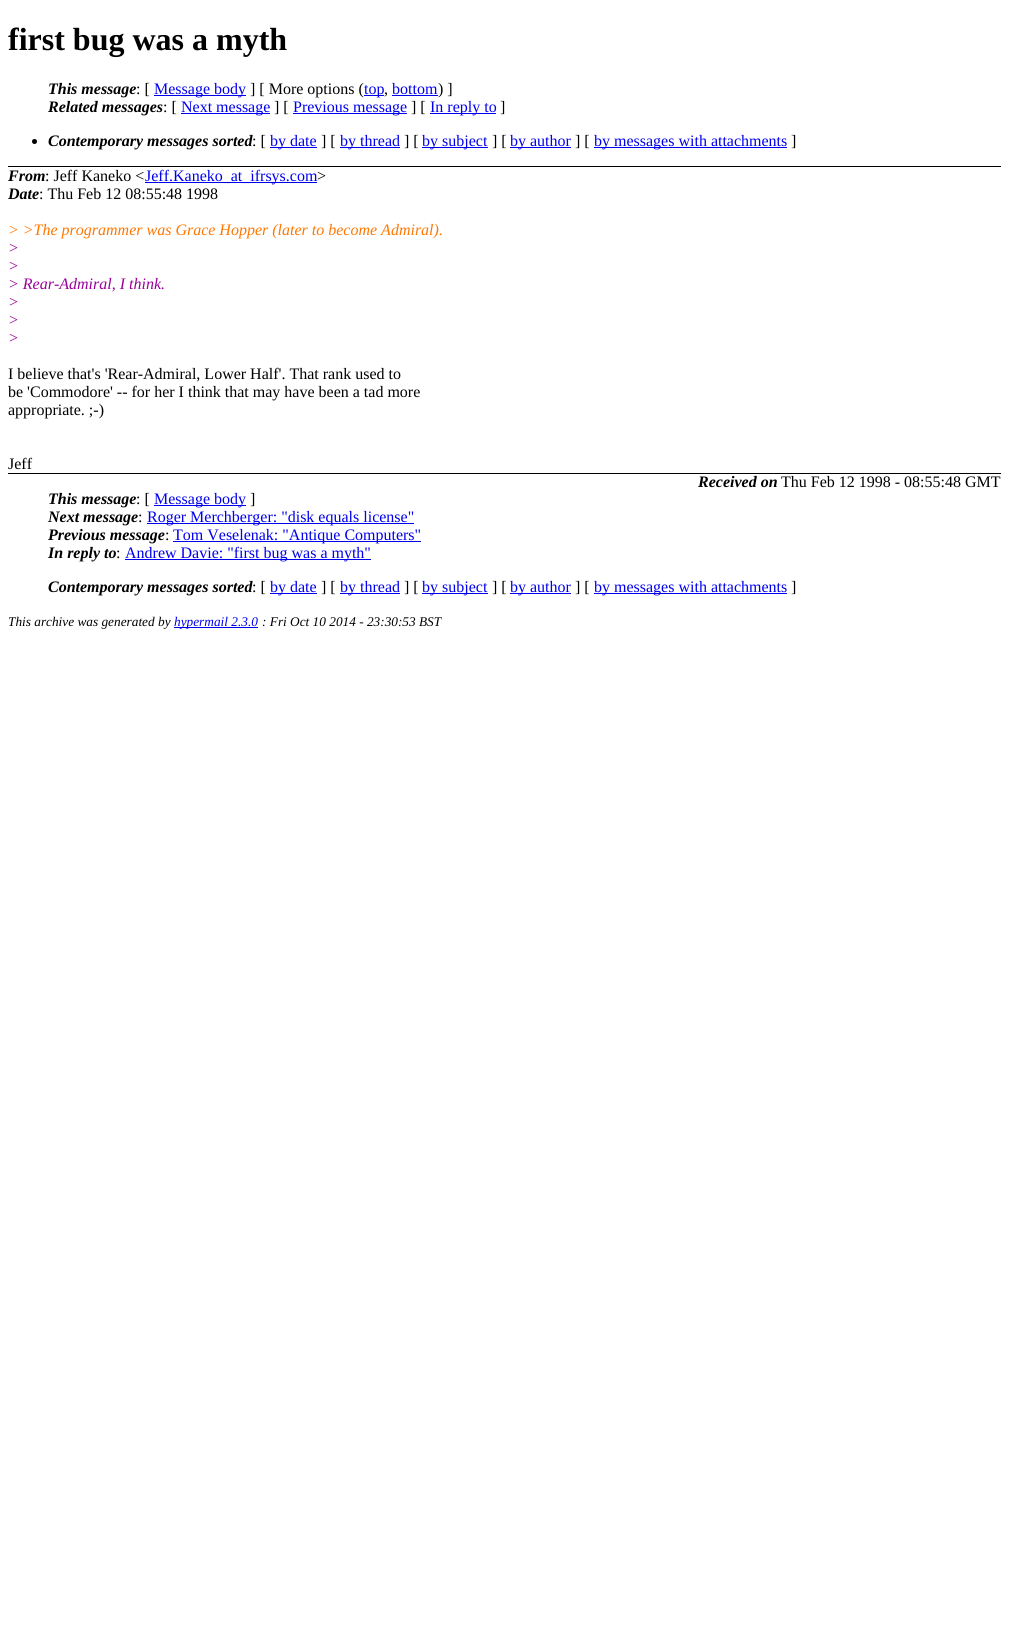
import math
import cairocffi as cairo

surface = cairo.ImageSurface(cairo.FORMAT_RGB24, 1009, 1644)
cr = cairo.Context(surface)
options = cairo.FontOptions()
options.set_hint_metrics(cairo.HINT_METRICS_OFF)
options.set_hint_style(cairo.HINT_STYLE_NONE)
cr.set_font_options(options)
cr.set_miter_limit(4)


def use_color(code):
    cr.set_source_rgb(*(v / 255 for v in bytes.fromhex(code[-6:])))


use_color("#ffffff")
cr.paint()
use_color("#000000")
cr.rectangle(8, 166, 993, 1)
cr.fill()
cr.select_font_face("Liberation Serif", cairo.FONT_SLANT_NORMAL, cairo.FONT_WEIGHT_BOLD)
cr.set_font_size(32)
cr.move_to(8, 50)
cr.show_text("first bug was a myth")
cr.select_font_face("Liberation Serif", cairo.FONT_SLANT_ITALIC, cairo.FONT_WEIGHT_BOLD)
cr.set_font_size(16)
cr.move_to(48, 94)
cr.show_text("This message")
cr.select_font_face("Liberation Serif")
cr.move_to(136, 94)
cr.show_text(": [")
use_color("#0000ee")
cr.rectangle(154, 95, 92, 1)
cr.fill()
cr.move_to(154, 94)
cr.show_text("Message body")
use_color("#000000")
cr.move_to(250, 94)
cr.show_text("] [ More options (")
use_color("#0000ee")
cr.rectangle(364, 95, 20, 1)
cr.fill()
cr.move_to(364, 94)
cr.show_text("top")
use_color("#000000")
cr.move_to(384, 94)
cr.show_text(",")
use_color("#0000ee")
cr.move_to(392, 94)
cr.show_text("bottom")
cr.rectangle(392, 95, 46, 1)
cr.fill()
use_color("#000000")
cr.move_to(438, 94)
cr.show_text(") ]")
cr.select_font_face("Liberation Serif", cairo.FONT_SLANT_ITALIC, cairo.FONT_WEIGHT_BOLD)
cr.move_to(48, 112)
cr.show_text("Related messages")
cr.select_font_face("Liberation Serif")
cr.move_to(163, 112)
cr.show_text(": [")
use_color("#0000ee")
cr.rectangle(181, 113, 89, 1)
cr.fill()
cr.move_to(181, 112)
cr.show_text("Next message")
use_color("#000000")
cr.move_to(274, 112)
cr.show_text("] [")
use_color("#0000ee")
cr.rectangle(293, 113, 114, 1)
cr.fill()
cr.move_to(293, 112)
cr.show_text("Previous message")
use_color("#000000")
cr.move_to(411, 112)
cr.show_text("] [")
use_color("#0000ee")
cr.rectangle(430, 113, 66, 1)
cr.fill()
cr.move_to(430, 112)
cr.show_text("In reply to")
use_color("#000000")
cr.move_to(500, 112)
cr.show_text("]")
cr.new_path()
cr.arc(34.5, 141.5, 2.5, 0, 2 * math.pi)
cr.fill()
cr.select_font_face("Liberation Serif", cairo.FONT_SLANT_ITALIC, cairo.FONT_WEIGHT_BOLD)
cr.move_to(48, 146)
cr.show_text("Contemporary messages sorted")
cr.select_font_face("Liberation Serif")
cr.move_to(252, 146)
cr.show_text(": [")
use_color("#0000ee")
cr.rectangle(270, 147, 47, 1)
cr.fill()
cr.move_to(270, 146)
cr.show_text("by date")
use_color("#000000")
cr.move_to(321, 146)
cr.show_text("] [")
use_color("#0000ee")
cr.rectangle(340, 147, 60, 1)
cr.fill()
cr.move_to(340, 146)
cr.show_text("by thread")
use_color("#000000")
cr.move_to(404, 146)
cr.show_text("] [")
use_color("#0000ee")
cr.rectangle(422, 147, 66, 1)
cr.fill()
cr.move_to(422, 146)
cr.show_text("by subject")
use_color("#000000")
cr.move_to(492, 146)
cr.show_text("] [")
use_color("#0000ee")
cr.rectangle(510, 147, 61, 1)
cr.fill()
cr.move_to(510, 146)
cr.show_text("by author")
use_color("#000000")
cr.move_to(575, 146)
cr.show_text("] [")
use_color("#0000ee")
cr.rectangle(594, 147, 193, 1)
cr.fill()
cr.move_to(594, 146)
cr.show_text("by messages with attachments")
use_color("#000000")
cr.move_to(791, 146)
cr.show_text("]")
cr.select_font_face("Liberation Serif", cairo.FONT_SLANT_ITALIC, cairo.FONT_WEIGHT_BOLD)
cr.move_to(8, 181)
cr.show_text("From")
cr.select_font_face("Liberation Serif")
cr.move_to(45, 181)
cr.show_text(": Jeff Kaneko <")
use_color("#0000ee")
cr.rectangle(145, 182, 172, 1)
cr.fill()
cr.move_to(145, 181)
cr.show_text("Jeff.Kaneko_at_ifrsys.com")
use_color("#000000")
cr.move_to(317, 181)
cr.show_text(">")
cr.select_font_face("Liberation Serif", cairo.FONT_SLANT_ITALIC, cairo.FONT_WEIGHT_BOLD)
cr.move_to(8, 199)
cr.show_text("Date")
cr.select_font_face("Liberation Serif")
cr.move_to(39, 199)
cr.show_text(": Thu Feb 12 08:55:48 1998")
cr.select_font_face("Liberation Serif", cairo.FONT_SLANT_ITALIC)
use_color("#ff7700")
cr.move_to(8, 235)
cr.show_text("> >The programmer was Grace Hopper (later to become Admiral).")
use_color("#990099")
cr.move_to(8, 253)
cr.show_text(">")
cr.move_to(8, 271)
cr.show_text(">")
cr.move_to(8, 289)
cr.show_text("> Rear-Admiral, I think.")
cr.move_to(8, 307)
cr.show_text(">")
cr.move_to(8, 325)
cr.show_text(">")
cr.move_to(8, 343)
cr.show_text(">")
cr.select_font_face("Liberation Serif")
use_color("#000000")
cr.move_to(8, 379)
cr.show_text("I believe that's 'Rear-Admiral, Lower Half'. That rank used to")
cr.move_to(8, 397)
cr.show_text("be 'Commodore' -- for her I think that may have been a tad more")
cr.move_to(8, 415)
cr.show_text("appropriate. ;-)")
cr.move_to(8, 469)
cr.show_text("Jeff")
cr.select_font_face("Liberation Serif", cairo.FONT_SLANT_ITALIC, cairo.FONT_WEIGHT_BOLD)
cr.move_to(698, 487)
cr.show_text("Received on")
cr.select_font_face("Liberation Serif")
cr.move_to(781, 487)
cr.show_text("Thu Feb 12 1998 - 08:55:48 GMT")
cr.rectangle(8, 473, 993, 1)
cr.fill()
cr.select_font_face("Liberation Serif", cairo.FONT_SLANT_ITALIC, cairo.FONT_WEIGHT_BOLD)
cr.move_to(48, 504)
cr.show_text("This message")
cr.select_font_face("Liberation Serif")
cr.move_to(136, 504)
cr.show_text(": [")
use_color("#0000ee")
cr.rectangle(154, 505, 92, 1)
cr.fill()
cr.move_to(154, 504)
cr.show_text("Message body")
use_color("#000000")
cr.move_to(250, 504)
cr.show_text("]")
cr.select_font_face("Liberation Serif", cairo.FONT_SLANT_ITALIC, cairo.FONT_WEIGHT_BOLD)
cr.move_to(48, 522)
cr.show_text("Next message")
cr.select_font_face("Liberation Serif")
cr.move_to(138, 522)
cr.show_text(":")
use_color("#0000ee")
cr.rectangle(147, 523, 267, 1)
cr.fill()
cr.move_to(147, 522)
cr.show_text("Roger Merchberger: \"disk equals license\"")
cr.select_font_face("Liberation Serif", cairo.FONT_SLANT_ITALIC, cairo.FONT_WEIGHT_BOLD)
use_color("#000000")
cr.move_to(48, 540)
cr.show_text("Previous message")
cr.select_font_face("Liberation Serif")
cr.move_to(165, 540)
cr.show_text(":")
use_color("#0000ee")
cr.rectangle(173, 541, 248, 1)
cr.fill()
cr.move_to(173, 540)
cr.show_text("Tom Veselenak: \"Antique Computers\"")
cr.select_font_face("Liberation Serif", cairo.FONT_SLANT_ITALIC, cairo.FONT_WEIGHT_BOLD)
use_color("#000000")
cr.move_to(48, 558)
cr.show_text("In reply to")
cr.select_font_face("Liberation Serif")
cr.move_to(116, 558)
cr.show_text(":")
use_color("#0000ee")
cr.rectangle(125, 559, 246, 1)
cr.fill()
cr.move_to(125, 558)
cr.show_text("Andrew Davie: \"first bug was a myth\"")
cr.select_font_face("Liberation Serif", cairo.FONT_SLANT_ITALIC, cairo.FONT_WEIGHT_BOLD)
use_color("#000000")
cr.move_to(48, 592)
cr.show_text("Contemporary messages sorted")
cr.select_font_face("Liberation Serif")
cr.move_to(252, 592)
cr.show_text(": [")
use_color("#0000ee")
cr.rectangle(270, 593, 47, 1)
cr.fill()
cr.move_to(270, 592)
cr.show_text("by date")
use_color("#000000")
cr.move_to(321, 592)
cr.show_text("] [")
use_color("#0000ee")
cr.rectangle(340, 593, 60, 1)
cr.fill()
cr.move_to(340, 592)
cr.show_text("by thread")
use_color("#000000")
cr.move_to(404, 592)
cr.show_text("] [")
use_color("#0000ee")
cr.rectangle(422, 593, 66, 1)
cr.fill()
cr.move_to(422, 592)
cr.show_text("by subject")
use_color("#000000")
cr.move_to(492, 592)
cr.show_text("] [")
use_color("#0000ee")
cr.rectangle(510, 593, 61, 1)
cr.fill()
cr.move_to(510, 592)
cr.show_text("by author")
use_color("#000000")
cr.move_to(575, 592)
cr.show_text("] [")
use_color("#0000ee")
cr.rectangle(594, 593, 193, 1)
cr.fill()
cr.move_to(594, 592)
cr.show_text("by messages with attachments")
use_color("#000000")
cr.move_to(791, 592)
cr.show_text("]")
cr.select_font_face("Liberation Serif", cairo.FONT_SLANT_ITALIC)
cr.set_font_size(13.3)
cr.move_to(8, 626)
cr.show_text("This archive was generated by")
use_color("#0000ee")
cr.rectangle(174, 627, 84, 1)
cr.fill()
cr.move_to(174, 626)
cr.show_text("hypermail 2.3.0")
use_color("#000000")
cr.move_to(262, 626)
cr.show_text(": Fri Oct 10 2014 - 23:30:53 BST")
surface.write_to_png("result.png")
